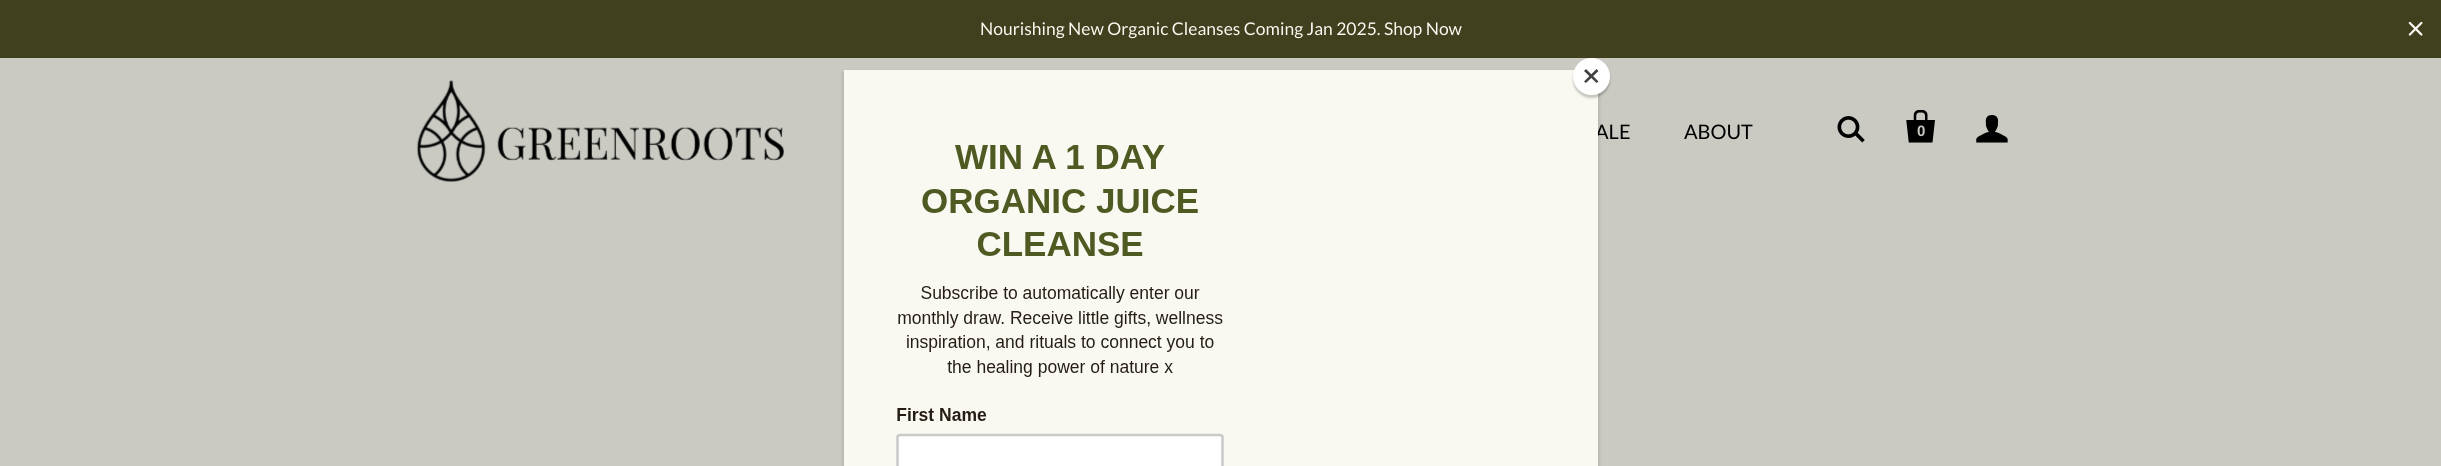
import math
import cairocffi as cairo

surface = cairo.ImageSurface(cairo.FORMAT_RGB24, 2441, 466)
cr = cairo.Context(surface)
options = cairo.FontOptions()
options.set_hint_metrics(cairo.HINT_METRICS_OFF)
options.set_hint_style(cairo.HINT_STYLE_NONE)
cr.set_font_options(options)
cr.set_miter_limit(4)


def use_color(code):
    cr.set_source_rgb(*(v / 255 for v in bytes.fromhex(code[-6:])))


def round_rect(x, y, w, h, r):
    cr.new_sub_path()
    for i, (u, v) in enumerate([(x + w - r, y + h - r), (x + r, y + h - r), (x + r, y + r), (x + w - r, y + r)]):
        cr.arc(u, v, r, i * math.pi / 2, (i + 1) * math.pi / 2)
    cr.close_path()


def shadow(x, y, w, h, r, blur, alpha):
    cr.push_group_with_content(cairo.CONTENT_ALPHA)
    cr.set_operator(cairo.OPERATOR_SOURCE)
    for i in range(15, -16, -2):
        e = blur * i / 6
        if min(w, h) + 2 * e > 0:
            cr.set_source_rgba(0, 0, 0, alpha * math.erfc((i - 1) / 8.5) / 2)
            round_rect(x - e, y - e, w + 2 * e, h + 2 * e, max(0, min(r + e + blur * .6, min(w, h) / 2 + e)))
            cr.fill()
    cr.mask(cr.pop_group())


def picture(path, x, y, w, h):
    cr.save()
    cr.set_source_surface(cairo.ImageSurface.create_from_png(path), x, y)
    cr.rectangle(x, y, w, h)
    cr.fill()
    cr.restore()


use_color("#cacac3")
cr.paint()
use_color("#000000")
shadow(844, 73, 754, 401, 0, 2.5, 0.2)
cr.select_font_face("Lato")
cr.set_font_size(20)
use_color("#000000")
cr.move_to(1595, 139)
cr.show_text("ALE")
picture("img2.png", 844, 70, 754, 396)
use_color("#000000")
shadow(1573, 60, 37, 38, 18.5, 1, 0.2)
use_color("#40401f")
cr.rectangle(0, 0, 2441, 58)
cr.fill()
cr.set_font_size(17.5)
use_color("#f9f9f1")
cr.move_to(980, 35)
cr.show_text("Nourishing New Organic Cleanses Coming Jan 2025. Shop Now")
picture("img1.png", 2408, 21, 15, 15)
use_color("#ffffff")
cr.arc(1591.5, 76.5, 18.5, 0, 2 * math.pi)
cr.fill()
use_color("#414141")
cr.new_path()
cr.move_to(1596.5, 69)
cr.line_to(1598.5, 71)
cr.line_to(1586, 83)
cr.line_to(1584, 81.5)
cr.close_path()
cr.fill()
cr.new_path()
cr.move_to(1584, 71)
cr.line_to(1586, 69)
cr.line_to(1598.5, 81.5)
cr.line_to(1596.5, 83)
cr.close_path()
cr.fill()
picture("img3.png", 416, 79, 368, 103)
cr.set_font_size(20)
use_color("#000000")
cr.move_to(1684, 139)
cr.show_text("ABOUT")
picture("img4.png", 1837, 116, 28, 27)
picture("img5.png", 1906, 110, 29, 33)
cr.select_font_face("Liberation Sans", cairo.FONT_SLANT_NORMAL, cairo.FONT_WEIGHT_BOLD)
cr.set_font_size(15)
use_color("#cacac3")
cr.move_to(1917, 136)
cr.show_text("0")
picture("img6.png", 1976, 115, 32, 28)
surface.write_to_png("result.png")
